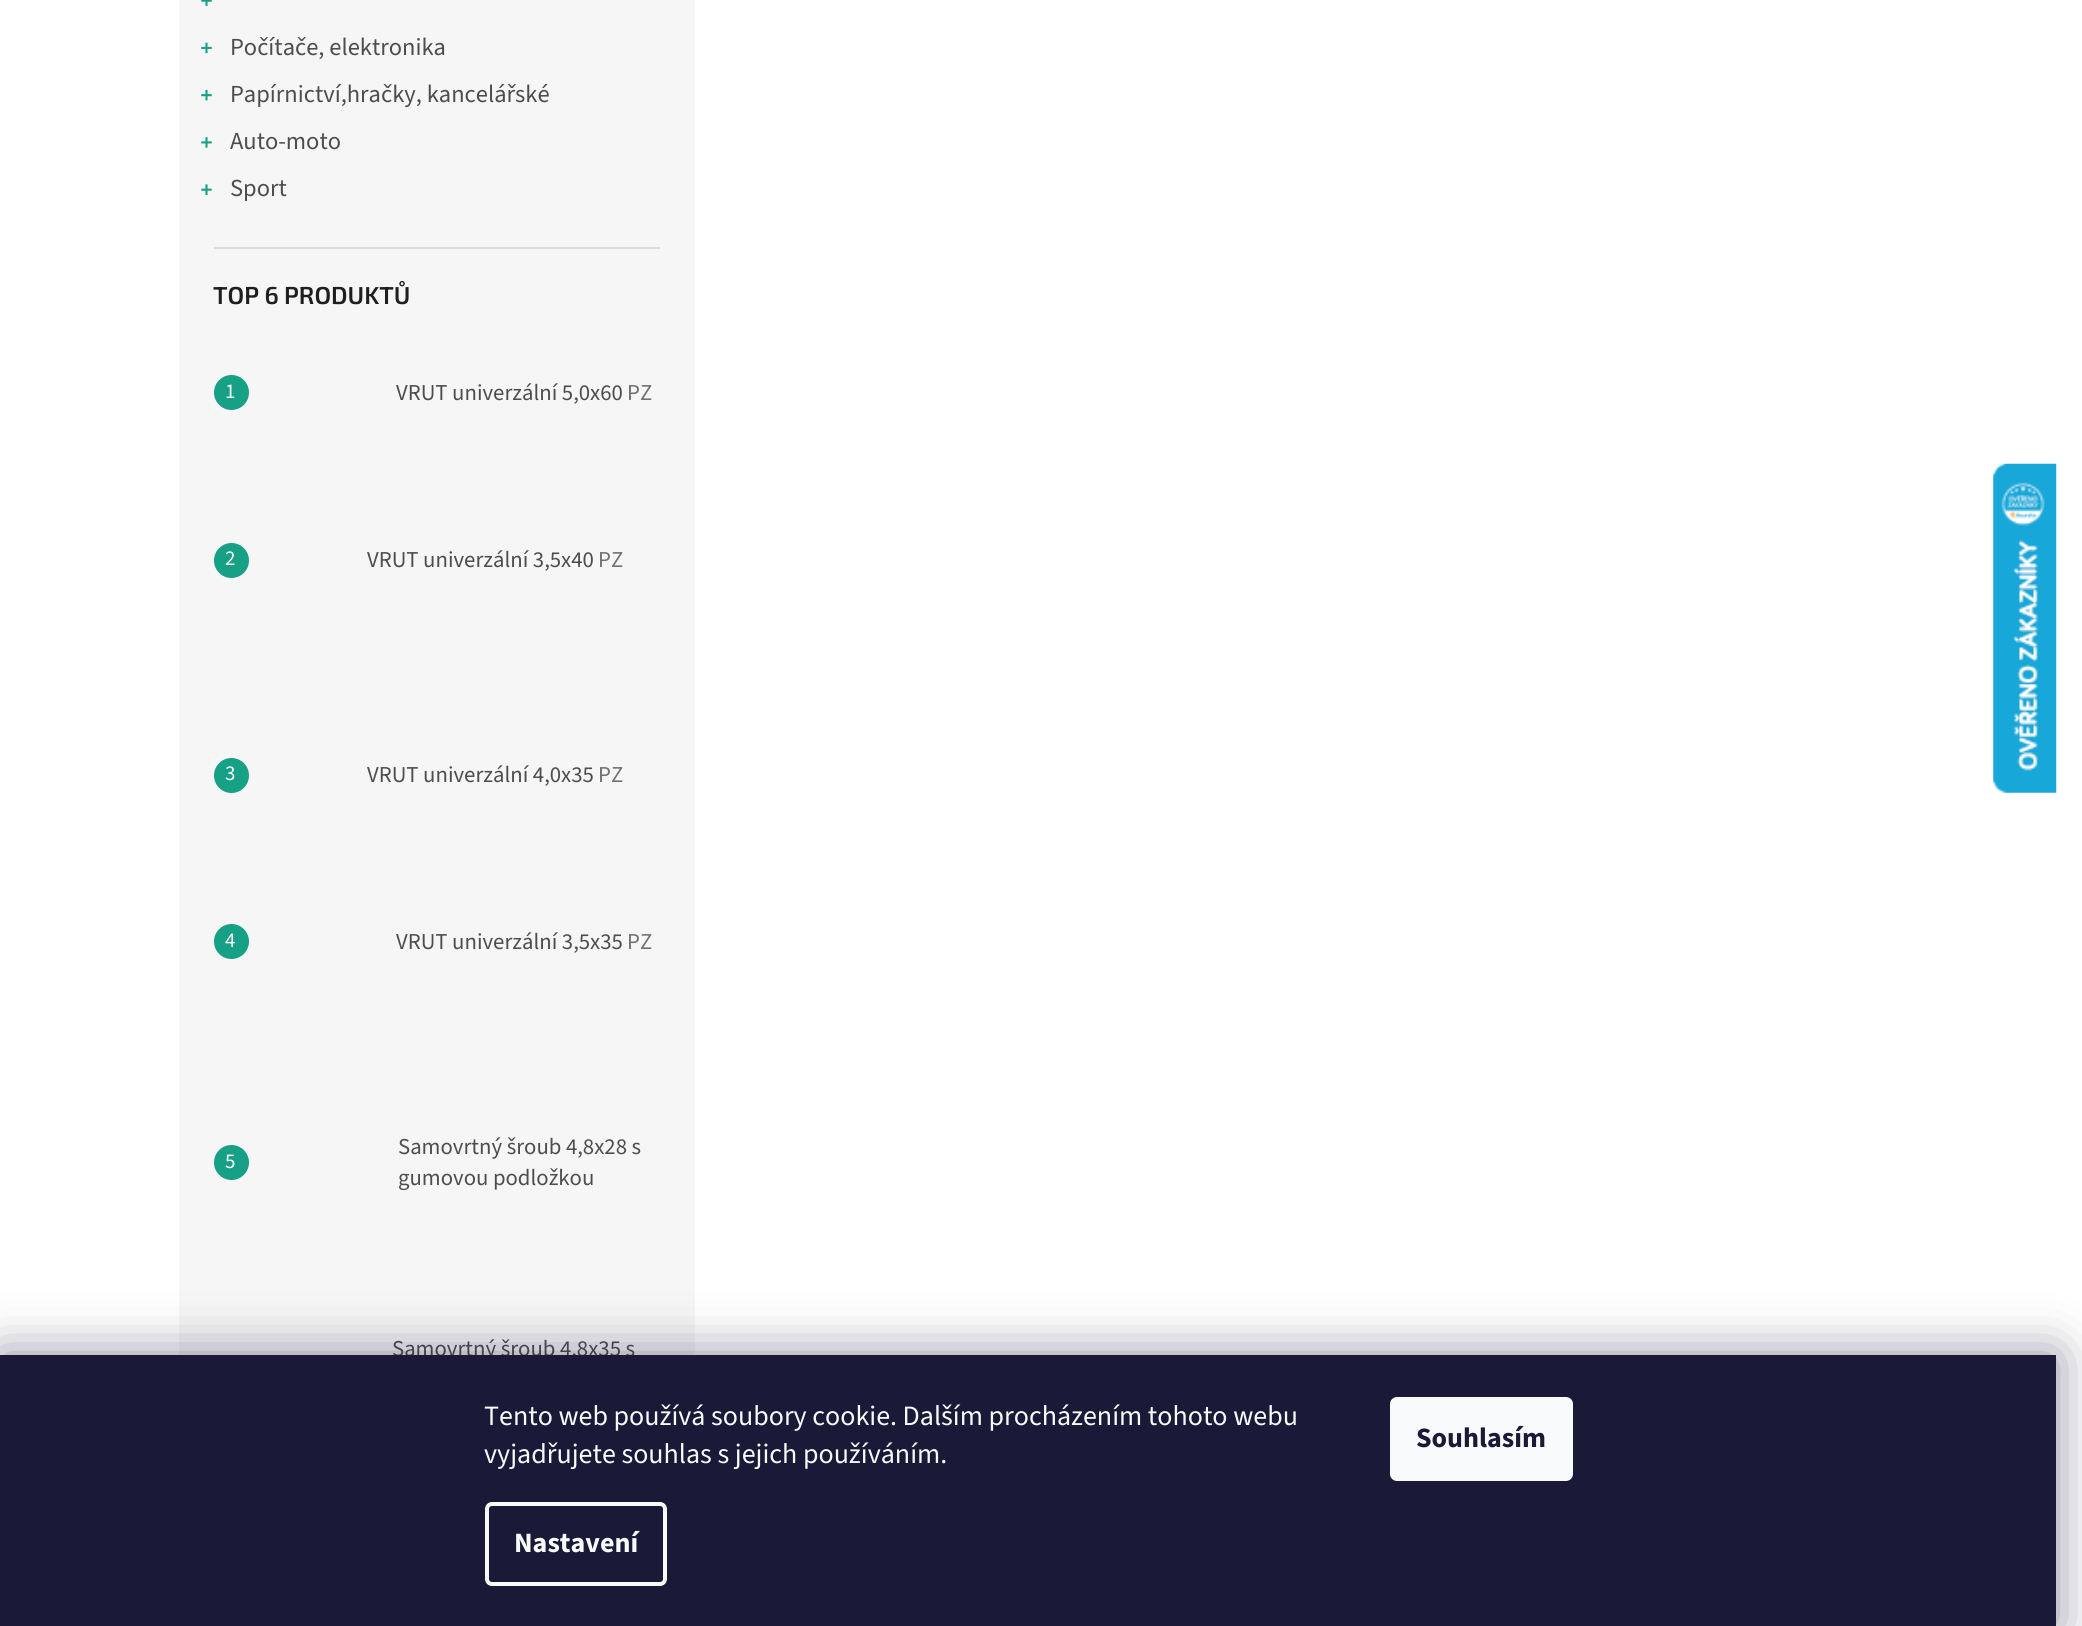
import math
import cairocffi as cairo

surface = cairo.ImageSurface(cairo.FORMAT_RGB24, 2082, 1626)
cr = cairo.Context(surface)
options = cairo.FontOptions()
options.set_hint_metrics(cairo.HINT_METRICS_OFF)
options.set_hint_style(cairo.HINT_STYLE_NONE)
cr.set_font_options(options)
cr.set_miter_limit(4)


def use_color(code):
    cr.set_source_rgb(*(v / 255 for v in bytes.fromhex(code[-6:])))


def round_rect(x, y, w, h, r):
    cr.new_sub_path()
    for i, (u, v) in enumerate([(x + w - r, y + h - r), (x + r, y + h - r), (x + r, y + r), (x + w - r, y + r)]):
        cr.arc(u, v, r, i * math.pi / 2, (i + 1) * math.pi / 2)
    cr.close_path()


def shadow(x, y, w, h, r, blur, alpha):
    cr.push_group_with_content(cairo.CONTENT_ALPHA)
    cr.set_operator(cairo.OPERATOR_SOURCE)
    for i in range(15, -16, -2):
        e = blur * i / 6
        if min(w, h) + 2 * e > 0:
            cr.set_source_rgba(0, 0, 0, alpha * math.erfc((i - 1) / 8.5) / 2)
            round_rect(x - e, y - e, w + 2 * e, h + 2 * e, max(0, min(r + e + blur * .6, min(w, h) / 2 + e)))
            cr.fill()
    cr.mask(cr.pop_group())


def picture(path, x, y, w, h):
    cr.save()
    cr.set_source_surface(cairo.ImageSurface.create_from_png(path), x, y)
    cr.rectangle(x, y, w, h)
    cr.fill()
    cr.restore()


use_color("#ffffff")
cr.paint()
use_color("#f6f6f6")
cr.rectangle(179, 0, 516, 1355)
cr.fill()
use_color("#dadada")
cr.rectangle(214, 247, 446, 2)
cr.fill()
picture("img1.png", 201, 0, 11, 6)
picture("img2.png", 201, 42, 11, 12)
cr.select_font_face("Source Sans 3")
cr.set_font_size(24.5)
use_color("#4d4d4d")
cr.move_to(230, 55)
cr.show_text("Počítače, elektronika")
picture("img3.png", 201, 89, 11, 12)
cr.move_to(230, 102)
cr.show_text("Papírnictví,hračky, kancelářské")
picture("img4.png", 201, 137, 11, 11)
cr.move_to(230, 149)
cr.show_text("Auto-moto")
picture("img5.png", 201, 184, 11, 11)
cr.move_to(230, 196)
cr.show_text("Sport")
cr.select_font_face("Exo 2 SemiBold")
use_color("#1f1f1f")
cr.move_to(213, 304)
cr.show_text("TOP 6 PRODUKTŮ")
use_color("#16a085")
cr.new_path()
cr.arc(231.5, 392.5, 17.5, 0, 2 * math.pi)
cr.fill()
cr.select_font_face("Source Sans 3")
cr.set_font_size(21)
use_color("#ffffff")
cr.move_to(225, 398)
cr.show_text("1")
cr.set_font_size(22.75)
use_color("#4d4d4d")
cr.move_to(396, 400)
cr.show_text("VRUT univerzální 5,0x60")
use_color("#707070")
cr.move_to(627, 400)
cr.show_text("PZ")
use_color("#16a085")
cr.new_path()
cr.arc(231.5, 560.5, 17.5, 0, 2 * math.pi)
cr.fill()
cr.set_font_size(21)
use_color("#ffffff")
cr.move_to(225, 565)
cr.show_text("2")
cr.set_font_size(22.75)
use_color("#4d4d4d")
cr.move_to(367, 567)
cr.show_text("VRUT univerzální 3,5x40")
use_color("#707070")
cr.move_to(598, 567)
cr.show_text("PZ")
use_color("#16a085")
cr.new_path()
cr.arc(231.5, 775.5, 17.5, 0, 2 * math.pi)
cr.fill()
cr.set_font_size(21)
use_color("#ffffff")
cr.move_to(225, 780)
cr.show_text("3")
cr.set_font_size(22.75)
use_color("#4d4d4d")
cr.move_to(367, 782)
cr.show_text("VRUT univerzální 4,0x35")
use_color("#707070")
cr.move_to(598, 782)
cr.show_text("PZ")
use_color("#16a085")
cr.new_path()
cr.arc(231.5, 941.5, 17.5, 0, 2 * math.pi)
cr.fill()
cr.set_font_size(21)
use_color("#ffffff")
cr.move_to(225, 947)
cr.show_text("4")
cr.set_font_size(22.75)
use_color("#4d4d4d")
cr.move_to(396, 949)
cr.show_text("VRUT univerzální 3,5x35")
use_color("#707070")
cr.move_to(627, 949)
cr.show_text("PZ")
use_color("#16a085")
cr.new_path()
cr.arc(231.5, 1162.5, 17.5, 0, 2 * math.pi)
cr.fill()
cr.set_font_size(21)
use_color("#ffffff")
cr.move_to(225, 1168)
cr.show_text("5")
cr.set_font_size(22.75)
use_color("#4d4d4d")
cr.move_to(398, 1154)
cr.show_text("Samovrtný šroub 4,8x28 s")
cr.move_to(398, 1185)
cr.show_text("gumovou podložkou")
cr.move_to(392, 1356)
cr.show_text("Samovrtný šroub 4,8x35 s")
picture("img6.png", 1993, 463, 64, 330)
use_color("#1b1939")
shadow(0, 1355, 2056, 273, 0, 26, 0.5)
use_color("#1a1937")
cr.rectangle(0, 1355, 2056, 271)
cr.fill()
cr.set_font_size(28)
use_color("#f8fafb")
cr.move_to(484, 1425)
cr.show_text("Tento web používá soubory cookie. Dalším procházením tohoto webu")
cr.move_to(484, 1463)
cr.show_text("vyjadřujete souhlas s jejich používáním.")
round_rect(487, 1504, 178, 80, 5)
cr.set_line_width(4)
cr.stroke()
cr.select_font_face("Source Sans 3", cairo.FONT_SLANT_NORMAL, cairo.FONT_WEIGHT_BOLD)
cr.move_to(514, 1552)
cr.show_text("Nastavení")
round_rect(1390, 1397, 183, 84, 7)
cr.fill()
use_color("#1a1937")
cr.move_to(1416, 1447)
cr.show_text("Souhlasím")
surface.write_to_png("result.png")
